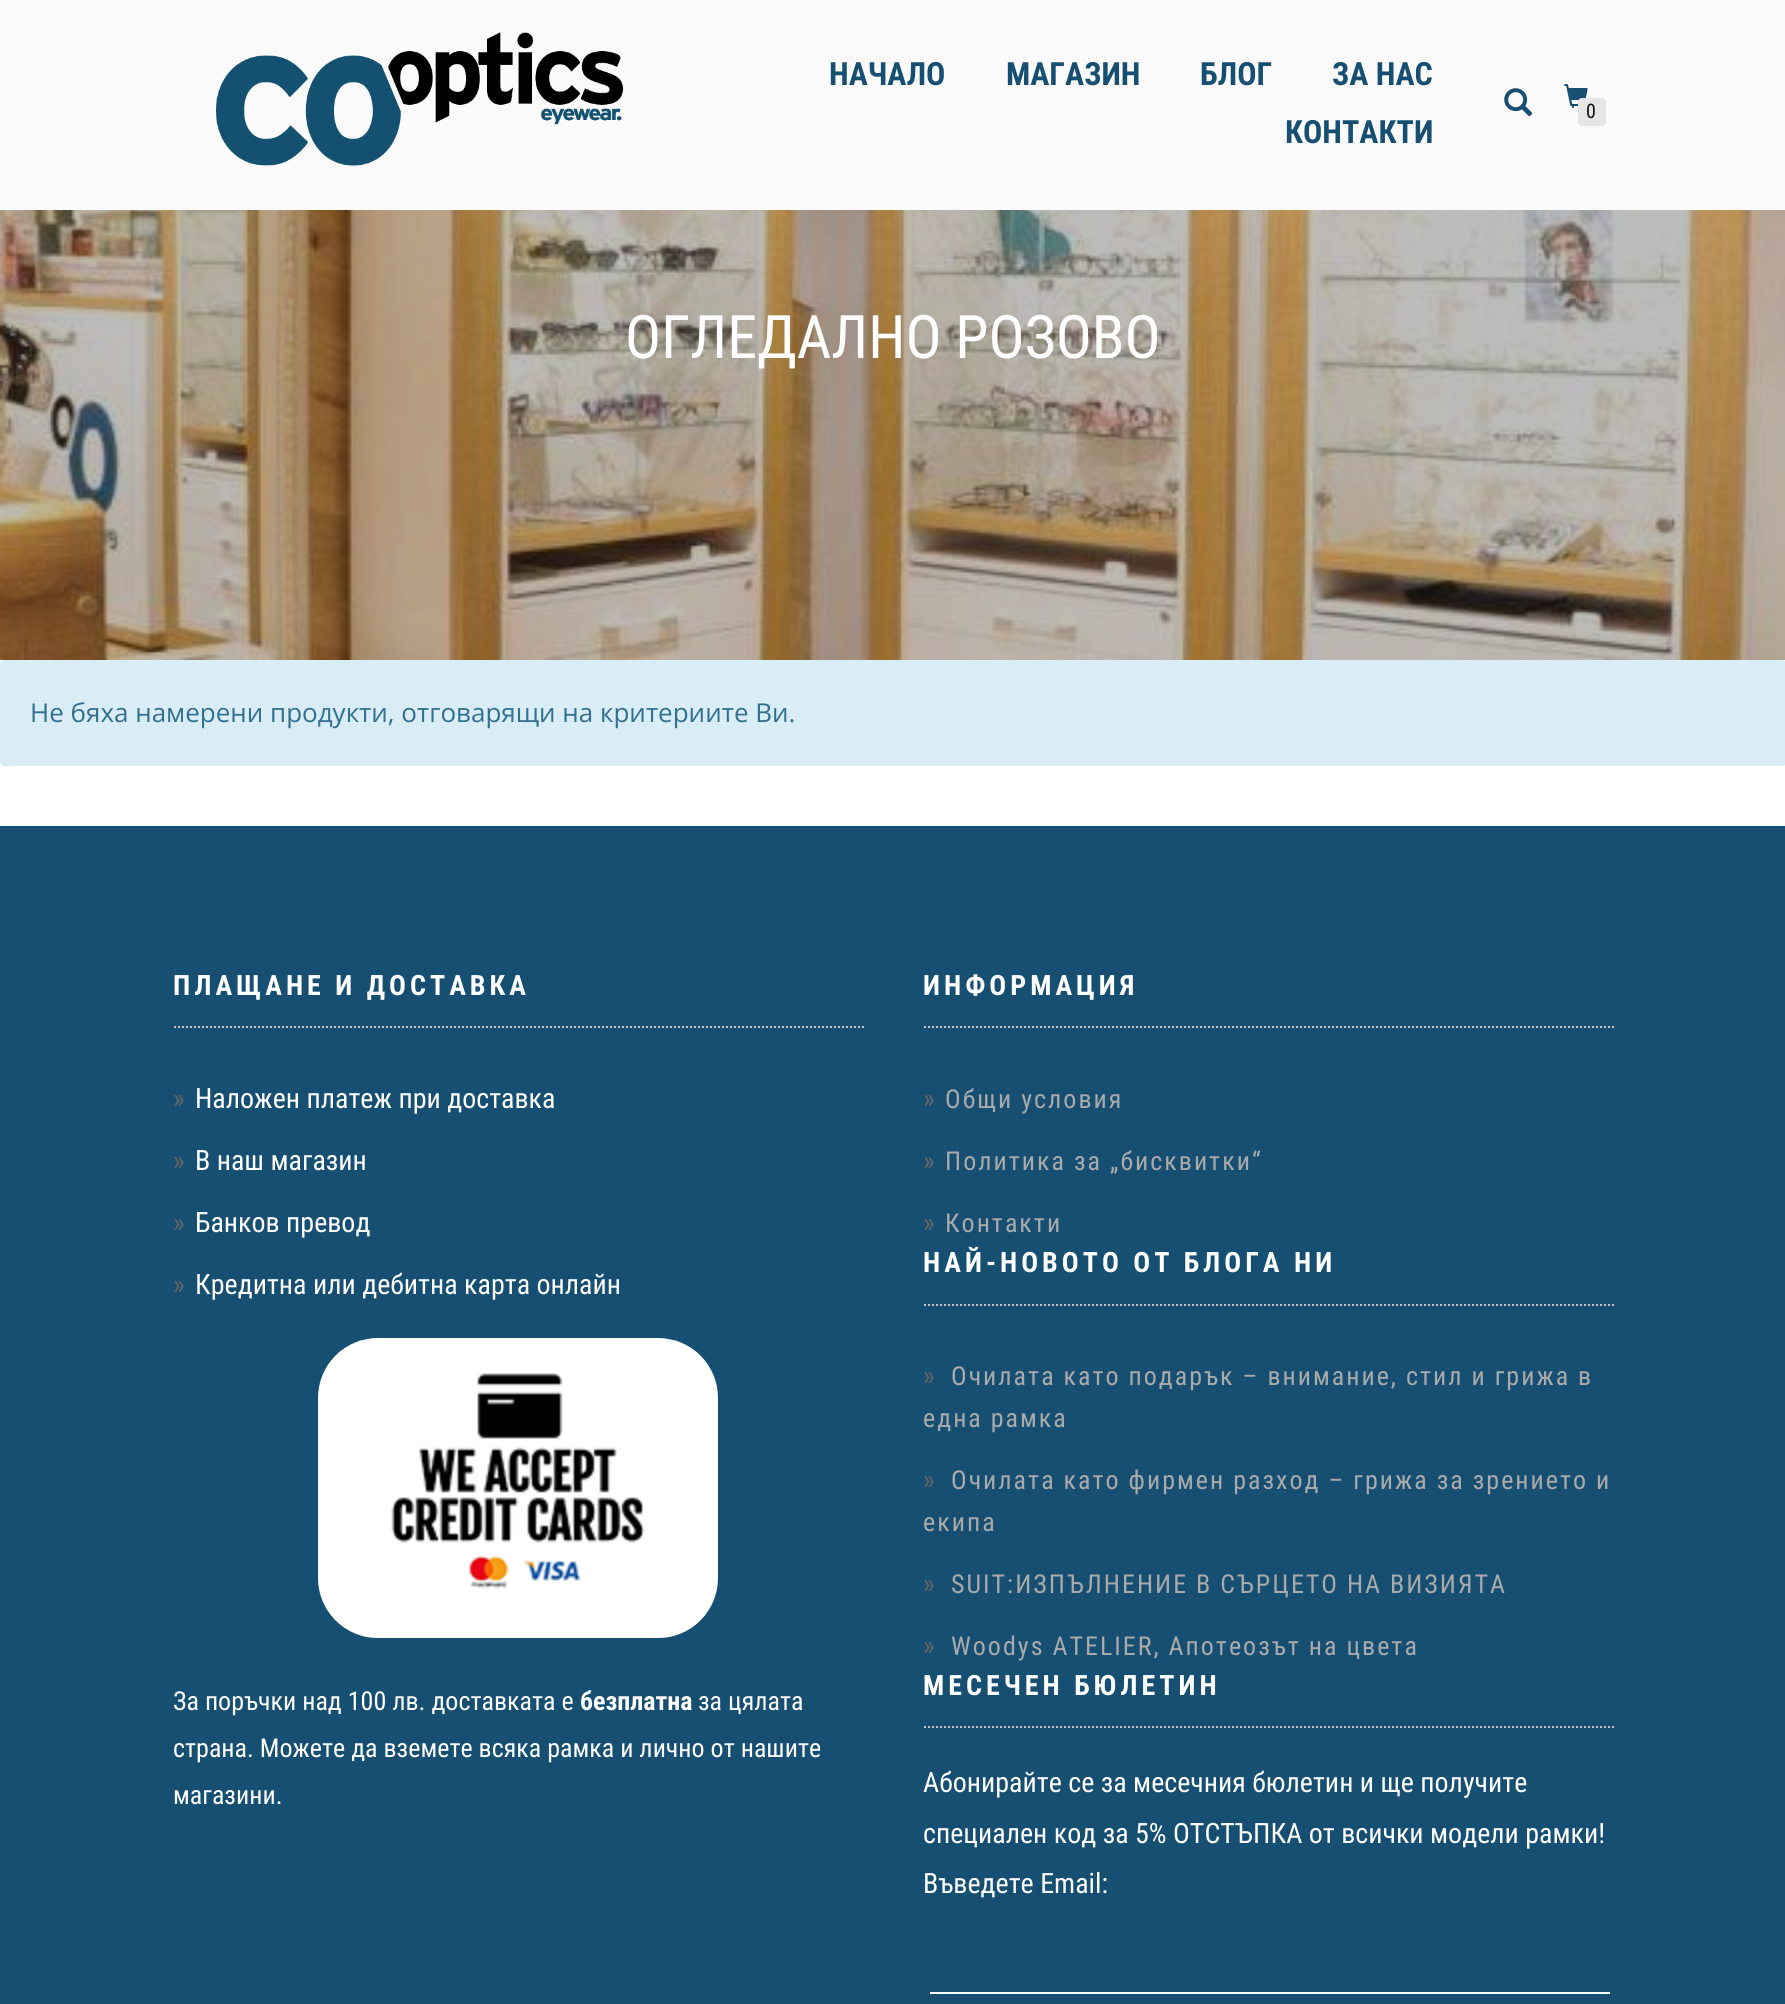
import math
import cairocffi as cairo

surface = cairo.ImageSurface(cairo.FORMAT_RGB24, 1785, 2004)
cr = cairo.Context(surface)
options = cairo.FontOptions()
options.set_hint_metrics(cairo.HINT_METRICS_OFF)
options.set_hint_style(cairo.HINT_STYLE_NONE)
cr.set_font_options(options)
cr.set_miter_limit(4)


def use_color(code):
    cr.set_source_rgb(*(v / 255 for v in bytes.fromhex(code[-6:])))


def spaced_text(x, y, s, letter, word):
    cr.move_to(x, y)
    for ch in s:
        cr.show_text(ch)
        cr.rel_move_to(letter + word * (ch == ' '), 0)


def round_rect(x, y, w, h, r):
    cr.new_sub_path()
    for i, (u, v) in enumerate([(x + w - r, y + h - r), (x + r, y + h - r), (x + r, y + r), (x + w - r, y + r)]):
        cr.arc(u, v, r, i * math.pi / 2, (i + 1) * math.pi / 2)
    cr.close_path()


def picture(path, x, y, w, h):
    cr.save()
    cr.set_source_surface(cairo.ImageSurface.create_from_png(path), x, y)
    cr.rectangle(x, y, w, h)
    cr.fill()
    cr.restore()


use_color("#ffffff")
cr.paint()
use_color("#fafafa")
cr.rectangle(0, 0, 1785, 210)
cr.fill()
picture("img1.png", 216, 32, 408, 134)
cr.select_font_face("Roboto Condensed", cairo.FONT_SLANT_NORMAL, cairo.FONT_WEIGHT_BOLD)
cr.set_font_size(32)
use_color("#164f71")
cr.move_to(829, 85)
cr.show_text("НАЧАЛО")
cr.move_to(1006, 85)
cr.show_text("МАГАЗИН")
cr.move_to(1200, 85)
cr.show_text("БЛОГ")
cr.move_to(1332, 85)
cr.show_text("ЗА НАС")
cr.move_to(1285, 143)
cr.show_text("КОНТАКТИ")
picture("img2.png", 1504, 88, 29, 29)
picture("img3.png", 1564, 84, 24, 24)
use_color("#e5e5e5")
round_rect(1578, 98, 28, 28, 4)
cr.fill()
cr.select_font_face("Roboto Condensed")
cr.set_font_size(20)
use_color("#111111")
cr.move_to(1586, 118)
cr.show_text("0")
picture("img4.png", 0, 210, 1785, 450)
cr.set_font_size(60)
use_color("#ffffff")
cr.move_to(625, 358)
cr.show_text("ОГЛЕДАЛНО РОЗОВО")
use_color("#d9edf7")
round_rect(0, 660, 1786, 106, 4)
cr.fill()
cr.select_font_face("Open Sans")
cr.set_font_size(26)
use_color("#31708f")
cr.move_to(30, 722)
cr.show_text("Не бяха намерени продукти, отговарящи на критериите Ви.")
use_color("#164f71")
cr.rectangle(0, 826, 1785, 1178)
cr.fill()
cr.new_path()
cr.move_to(174, 1027)
cr.line_to(864, 1027)
use_color("#c2c2c2")
cr.set_dash([2, 2])
cr.stroke()
cr.select_font_face("Roboto Condensed", cairo.FONT_SLANT_NORMAL, cairo.FONT_WEIGHT_BOLD)
cr.set_font_size(28)
use_color("#ffffff")
spaced_text(173, 995, "ПЛАЩАНЕ И ДОСТАВКА", 4, 0)
cr.select_font_face("Roboto Condensed")
use_color("#666666")
cr.move_to(173, 1108)
cr.show_text("»")
use_color("#ffffff")
cr.move_to(195, 1108)
cr.show_text("Наложен платеж при доставка")
use_color("#666666")
cr.move_to(173, 1170)
cr.show_text("»")
use_color("#ffffff")
cr.move_to(195, 1170)
cr.show_text("В наш магазин")
use_color("#666666")
cr.move_to(173, 1232)
cr.show_text("»")
use_color("#ffffff")
cr.move_to(195, 1232)
cr.show_text("Банков превод")
use_color("#666666")
cr.move_to(173, 1294)
cr.show_text("»")
use_color("#ffffff")
cr.move_to(195, 1294)
cr.show_text("Кредитна или дебитна карта онлайн")
picture("img5.png", 318, 1338, 400, 300)
cr.set_font_size(26)
cr.move_to(173, 1710)
cr.show_text("За поръчки над 100 лв. доставката е")
cr.select_font_face("Roboto Condensed", cairo.FONT_SLANT_NORMAL, cairo.FONT_WEIGHT_BOLD)
cr.move_to(580, 1710)
cr.show_text("безплатна")
cr.select_font_face("Roboto Condensed")
cr.move_to(698, 1710)
cr.show_text("за цялата")
cr.move_to(173, 1757)
cr.show_text("страна. Можете да вземете всяка рамка и лично от нашите")
cr.move_to(173, 1804)
cr.show_text("магазини.")
cr.new_path()
cr.move_to(924, 1027)
cr.line_to(1614, 1027)
use_color("#c2c2c2")
cr.stroke()
cr.select_font_face("Roboto Condensed", cairo.FONT_SLANT_NORMAL, cairo.FONT_WEIGHT_BOLD)
cr.set_font_size(28)
use_color("#ffffff")
spaced_text(923, 995, "ИНФОРМАЦИЯ", 4, 0)
cr.select_font_face("Roboto Condensed")
use_color("#666666")
cr.move_to(923, 1108)
cr.show_text("»")
cr.set_font_size(26)
use_color("#aaaaaa")
spaced_text(945, 1108, "Общи условия", 2, 0)
cr.set_font_size(28)
use_color("#666666")
cr.move_to(923, 1170)
cr.show_text("»")
cr.set_font_size(26)
use_color("#aaaaaa")
spaced_text(945, 1170, "Политика за „бисквитки“", 2, 0)
cr.set_font_size(28)
use_color("#666666")
cr.move_to(923, 1232)
cr.show_text("»")
cr.set_font_size(26)
use_color("#aaaaaa")
spaced_text(945, 1232, "Контакти", 2, 0)
cr.new_path()
cr.move_to(924, 1305)
cr.line_to(1614, 1305)
use_color("#c2c2c2")
cr.stroke()
cr.select_font_face("Roboto Condensed", cairo.FONT_SLANT_NORMAL, cairo.FONT_WEIGHT_BOLD)
cr.set_font_size(28)
use_color("#ffffff")
spaced_text(923, 1272, "НАЙ-НОВОТО ОТ БЛОГА НИ", 4, 0)
cr.select_font_face("Roboto Condensed")
use_color("#666666")
cr.move_to(923, 1385)
cr.show_text("»")
cr.set_font_size(26)
use_color("#aaaaaa")
spaced_text(951, 1385, "Очилата като подарък – внимание, стил и грижа в", 2, 0)
spaced_text(923, 1427, "една рамка", 2, 0)
cr.set_font_size(28)
use_color("#666666")
cr.move_to(923, 1489)
cr.show_text("»")
cr.set_font_size(26)
use_color("#aaaaaa")
spaced_text(951, 1489, "Очилата като фирмен разход – грижа за зрението и", 2, 0)
spaced_text(923, 1531, "екипа", 2, 0)
cr.set_font_size(28)
use_color("#666666")
cr.move_to(923, 1593)
cr.show_text("»")
cr.set_font_size(26)
use_color("#aaaaaa")
spaced_text(951, 1593, "SUIT:ИЗПЪЛНЕНИЕ В СЪРЦЕТО НА ВИЗИЯТА", 2, 0)
cr.set_font_size(28)
use_color("#666666")
cr.move_to(923, 1655)
cr.show_text("»")
cr.set_font_size(26)
use_color("#aaaaaa")
spaced_text(951, 1655, "Woodys ATELIER, Апотеозът на цвета", 2, 0)
cr.new_path()
cr.move_to(924, 1727)
cr.line_to(1614, 1727)
use_color("#c2c2c2")
cr.stroke()
cr.select_font_face("Roboto Condensed", cairo.FONT_SLANT_NORMAL, cairo.FONT_WEIGHT_BOLD)
cr.set_font_size(28)
use_color("#ffffff")
spaced_text(923, 1695, "МЕСЕЧЕН БЮЛЕТИН", 4, 0)
cr.select_font_face("Roboto Condensed")
cr.move_to(923, 1792)
cr.show_text("Абонирайте се за месечния бюлетин и ще получите")
cr.move_to(923, 1843)
cr.show_text("специален код за 5% ОТСТЪПКА от всички модели рамки!")
cr.move_to(923, 1893)
cr.show_text("Въведете Email:")
cr.rectangle(930, 1992, 680, 2)
cr.fill()
surface.write_to_png("result.png")
